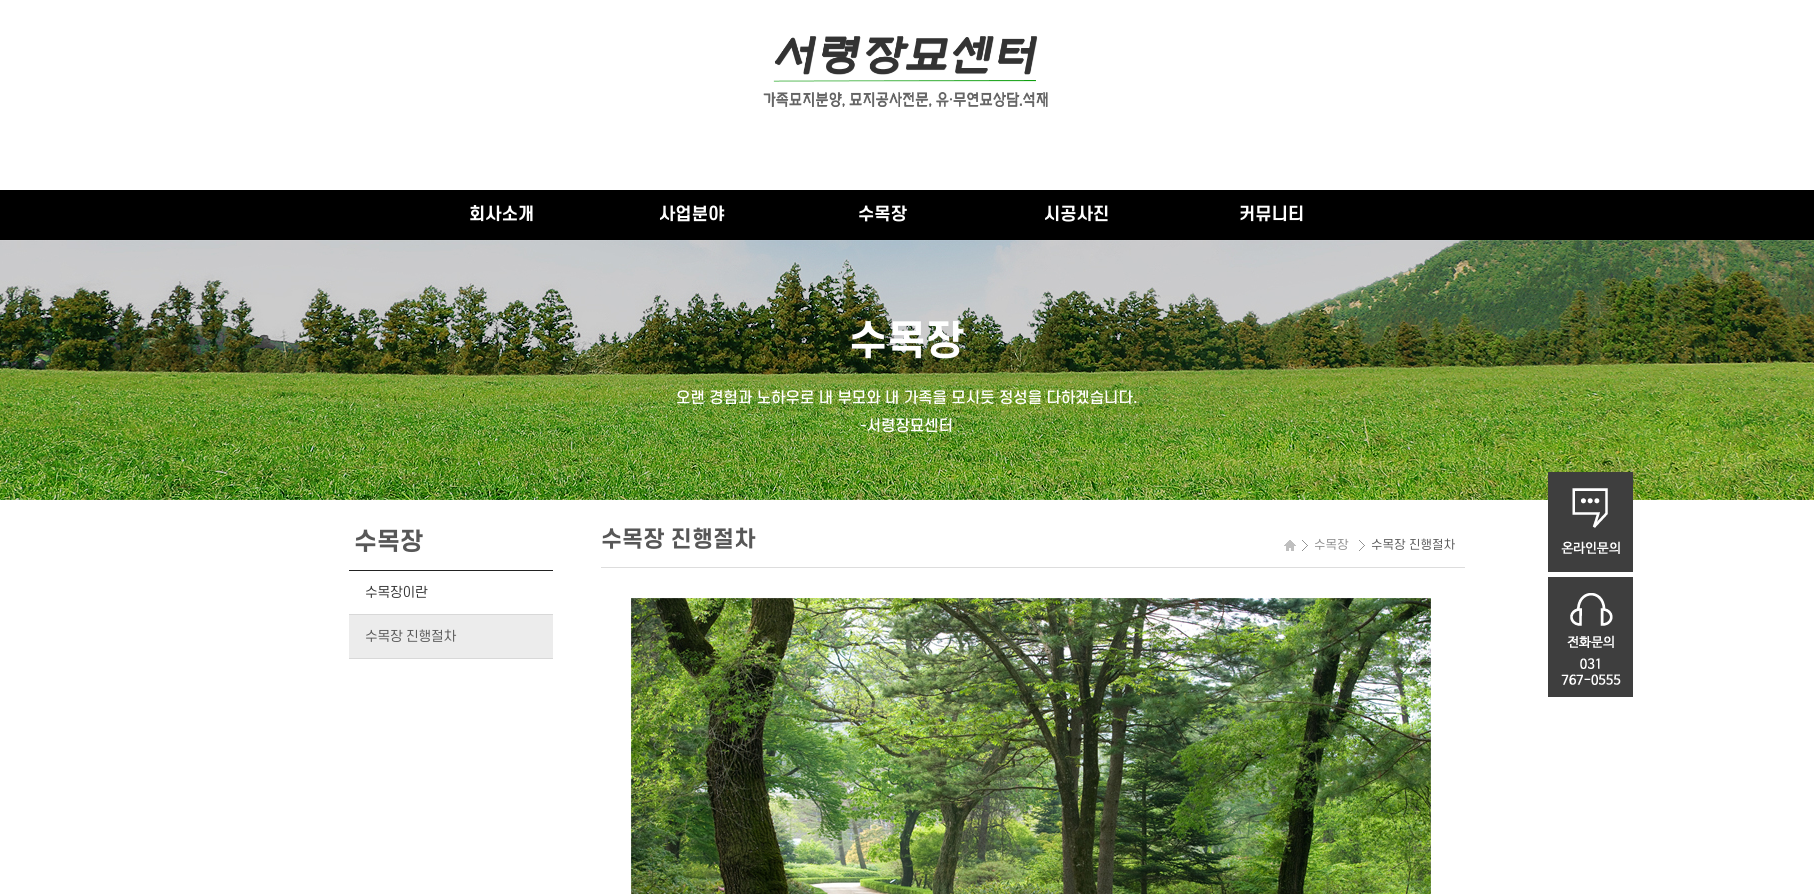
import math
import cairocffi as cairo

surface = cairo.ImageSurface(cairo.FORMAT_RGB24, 1814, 894)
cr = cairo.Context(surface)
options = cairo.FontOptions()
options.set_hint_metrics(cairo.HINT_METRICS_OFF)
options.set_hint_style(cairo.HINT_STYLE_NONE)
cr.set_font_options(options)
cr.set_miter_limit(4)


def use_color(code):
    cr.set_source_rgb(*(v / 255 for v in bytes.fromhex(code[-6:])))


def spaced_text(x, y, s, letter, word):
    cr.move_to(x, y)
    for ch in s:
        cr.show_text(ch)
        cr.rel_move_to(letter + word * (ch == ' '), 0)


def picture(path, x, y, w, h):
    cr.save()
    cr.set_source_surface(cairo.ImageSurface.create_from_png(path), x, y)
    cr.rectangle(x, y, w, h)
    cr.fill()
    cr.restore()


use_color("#ffffff")
cr.paint()
picture("img1.png", 763, 36, 285, 71)
use_color("#000000")
cr.rectangle(0, 190, 1814, 50)
cr.fill()
cr.select_font_face("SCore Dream", cairo.FONT_SLANT_NORMAL, cairo.FONT_WEIGHT_BOLD)
cr.set_font_size(17)
use_color("#ffffff")
cr.move_to(469, 220)
cr.show_text("회사소개")
cr.move_to(659, 220)
cr.show_text("사업분야")
cr.move_to(858, 220)
cr.show_text("수목장")
cr.move_to(1044, 220)
cr.show_text("시공사진")
cr.move_to(1239, 220)
cr.show_text("커뮤니티")
picture("img2.png", 0, 240, 1814, 260)
cr.set_font_size(40)
cr.move_to(849, 355)
cr.show_text("수목장")
cr.select_font_face("SCore Dream Medium")
cr.set_font_size(15)
cr.move_to(676, 403)
cr.show_text("오랜 경험과 노하우로 내 부모와 내 가족을 모시듯 정성을 다하겠습니다.")
cr.move_to(860, 431)
cr.show_text("-서령장묘센터")
cr.select_font_face("SCore Dream", cairo.FONT_SLANT_NORMAL, cairo.FONT_WEIGHT_BOLD)
cr.set_font_size(24)
use_color("#575757")
cr.move_to(354, 550)
cr.show_text("수목장")
use_color("#222222")
cr.rectangle(349, 570, 204, 1)
cr.fill()
use_color("#d8d8d8")
cr.rectangle(349, 614, 204, 1)
cr.fill()
cr.select_font_face("SCore Dream")
cr.set_font_size(13.25)
use_color("#333333")
spaced_text(365, 597, "수목장이란", -0.25, 0)
use_color("#d8d8d8")
cr.rectangle(349, 658, 204, 1)
cr.fill()
use_color("#ececec")
cr.rectangle(349, 615, 204, 43)
cr.fill()
use_color("#575757")
spaced_text(365, 641, "수목장 진행절차", -0.25, 0)
use_color("#dddddd")
cr.rectangle(601, 567, 864, 1)
cr.fill()
cr.select_font_face("SCore Dream", cairo.FONT_SLANT_NORMAL, cairo.FONT_WEIGHT_BOLD)
cr.set_font_size(22)
use_color("#575757")
cr.move_to(601, 547)
cr.show_text("수목장 진행절차")
picture("img3.png", 1284, 540, 12, 11)
picture("img4.png", 1302, 540, 6, 11)
cr.select_font_face("SCore Dream")
cr.set_font_size(12)
use_color("#8c8c8c")
cr.move_to(1314, 549)
cr.show_text("수목장")
picture("img4.png", 1359, 540, 6, 11)
use_color("#575757")
cr.move_to(1371, 549)
cr.show_text("수목장 진행절차")
picture("img5.png", 631, 598, 800, 296)
picture("img6.png", 1548, 472, 85, 225)
surface.write_to_png("result.png")
